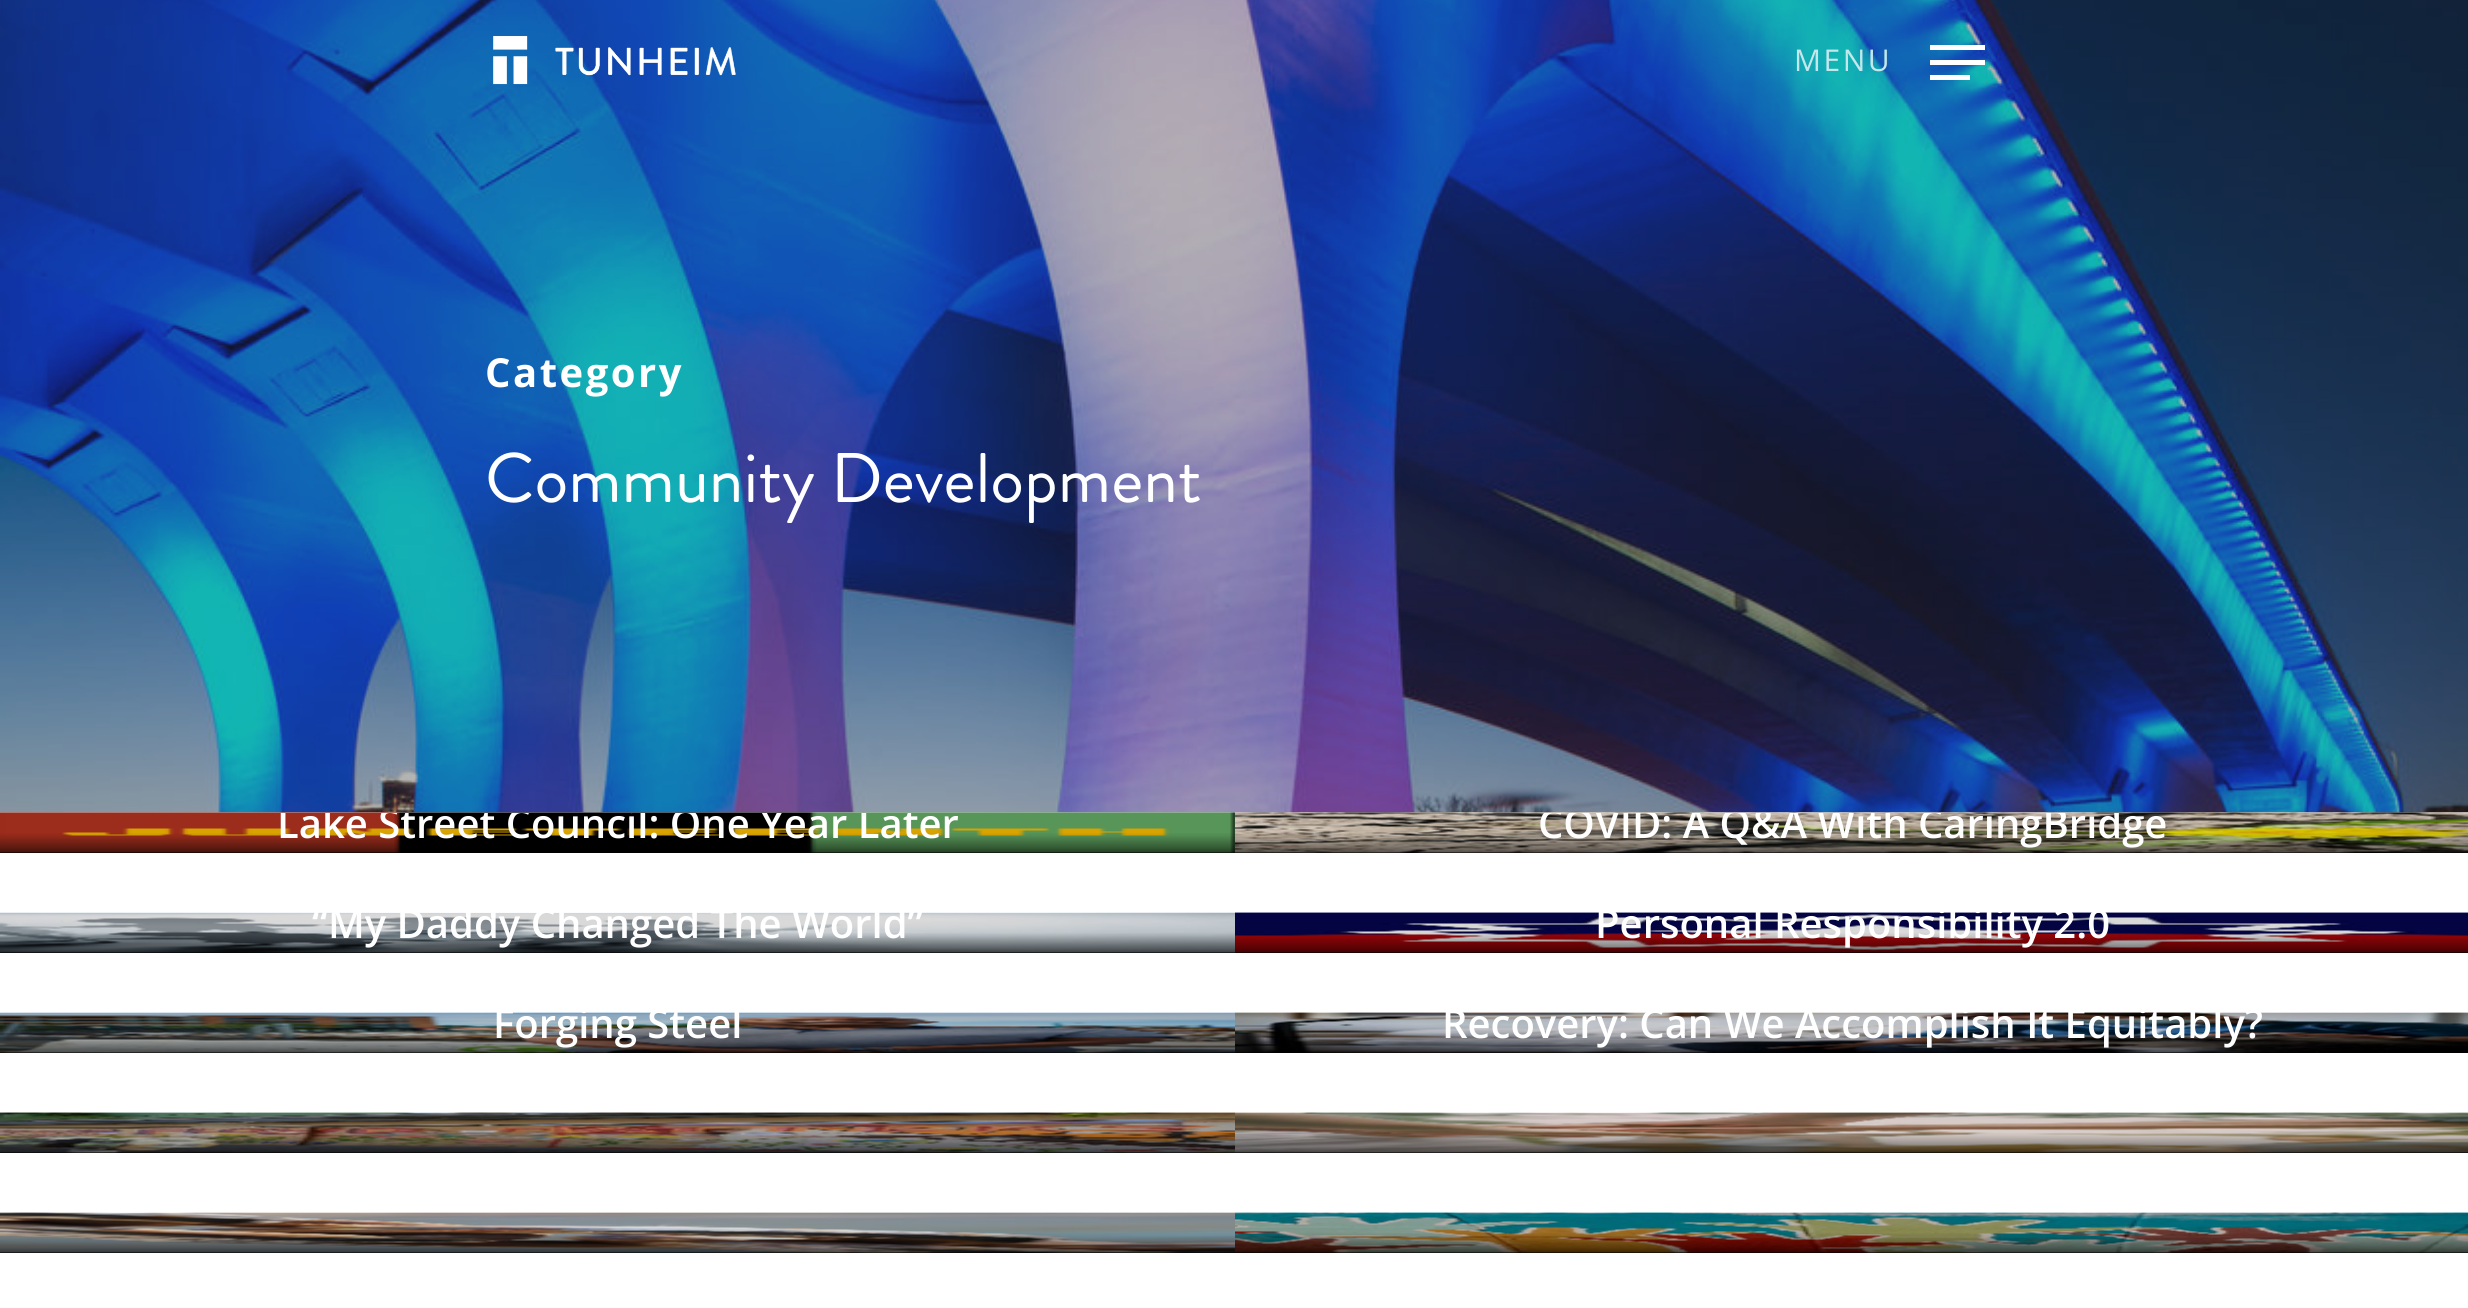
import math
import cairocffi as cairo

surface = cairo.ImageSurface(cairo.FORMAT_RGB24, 2468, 1308)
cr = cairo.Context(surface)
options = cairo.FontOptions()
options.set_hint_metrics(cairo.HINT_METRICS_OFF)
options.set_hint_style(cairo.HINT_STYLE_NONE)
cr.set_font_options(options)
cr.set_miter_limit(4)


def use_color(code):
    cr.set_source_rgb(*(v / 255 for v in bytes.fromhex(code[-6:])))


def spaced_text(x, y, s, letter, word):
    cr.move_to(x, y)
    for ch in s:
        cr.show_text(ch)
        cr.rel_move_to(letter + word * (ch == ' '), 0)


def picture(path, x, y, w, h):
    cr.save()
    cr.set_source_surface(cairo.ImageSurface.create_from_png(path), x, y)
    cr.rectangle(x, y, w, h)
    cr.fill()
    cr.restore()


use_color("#ffffff")
cr.paint()
use_color("#b6b6b6")
cr.rectangle(0, 812, 2468, 1)
cr.fill()
picture("img2.png", 0, 0, 2468, 813)
picture("img1.png", 493, 36, 243, 49)
cr.select_font_face("Open Sans")
cr.set_font_size(30)
use_color("#c4e7ec")
spaced_text(1794, 71, "MENU", 2.5, 0)
use_color("#ffffff")
cr.rectangle(1930, 45, 55, 5)
cr.fill()
cr.rectangle(1930, 75, 40, 5)
cr.fill()
cr.rectangle(1930, 60, 55, 5)
cr.fill()
cr.select_font_face("Open Sans", cairo.FONT_SLANT_NORMAL, cairo.FONT_WEIGHT_BOLD)
cr.set_font_size(40)
spaced_text(485, 387, "Category", 2.5, 0)
cr.select_font_face("Brandon Grotesque")
cr.set_font_size(70)
cr.move_to(485, 502)
cr.show_text("Community Development")
use_color("#000000")
cr.rectangle(0, 813, 2468, 40)
cr.fill()
picture("img3.png", 0, 812, 1235, 41)
gradient = cairo.LinearGradient(618, 832, 618, 853)
gradient.add_color_stop_rgba(0, 1, 1, 1, 0)
gradient.add_color_stop_rgba(0.01, 0, 0, 0, 0)
gradient.add_color_stop_rgba(0.16, 0, 0, 0, 0.06)
gradient.add_color_stop_rgba(0.75, 0, 0, 0, 0.4)
gradient.add_color_stop_rgba(1, 0, 0, 0, 0.6)
cr.set_source(gradient)
cr.rectangle(0, 833, 1235, 20)
cr.fill()
cr.save()
cr.rectangle(0, 813, 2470, 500)
cr.clip()
cr.select_font_face("Open Sans SemiBold")
cr.set_font_size(40)
use_color("#ffffff")
cr.move_to(277, 838)
cr.show_text("Lake Street Council: One Year Later")
cr.restore()
use_color("#000000")
cr.rectangle(0, 1013, 2468, 40)
cr.fill()
picture("img4.png", 0, 1012, 1235, 41)
gradient = cairo.LinearGradient(618, 1032, 618, 1053)
gradient.add_color_stop_rgba(0, 1, 1, 1, 0)
gradient.add_color_stop_rgba(0.01, 0, 0, 0, 0)
gradient.add_color_stop_rgba(0.16, 0, 0, 0, 0.06)
gradient.add_color_stop_rgba(0.75, 0, 0, 0, 0.4)
gradient.add_color_stop_rgba(1, 0, 0, 0, 0.6)
cr.set_source(gradient)
cr.rectangle(0, 1033, 1235, 20)
cr.fill()
picture("img5.png", 1235, 812, 1233, 41)
gradient = cairo.LinearGradient(1853, 832, 1853, 853)
gradient.add_color_stop_rgba(0, 1, 1, 1, 0)
gradient.add_color_stop_rgba(0.01, 0, 0, 0, 0)
gradient.add_color_stop_rgba(0.16, 0, 0, 0, 0.06)
gradient.add_color_stop_rgba(0.75, 0, 0, 0, 0.4)
gradient.add_color_stop_rgba(1, 0, 0, 0, 0.6)
cr.set_source(gradient)
cr.rectangle(1235, 833, 1233, 20)
cr.fill()
cr.save()
cr.rectangle(0, 813, 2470, 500)
cr.clip()
cr.select_font_face("Open Sans SemiBold")
cr.set_font_size(40)
use_color("#ffffff")
cr.move_to(1538, 838)
cr.show_text("COVID: A Q&A With CaringBridge")
cr.restore()
picture("img6.png", 1235, 1012, 1233, 41)
gradient = cairo.LinearGradient(1853, 1032, 1853, 1053)
gradient.add_color_stop_rgba(0, 1, 1, 1, 0)
gradient.add_color_stop_rgba(0.01, 0, 0, 0, 0)
gradient.add_color_stop_rgba(0.16, 0, 0, 0, 0.06)
gradient.add_color_stop_rgba(0.75, 0, 0, 0, 0.4)
gradient.add_color_stop_rgba(1, 0, 0, 0, 0.6)
cr.set_source(gradient)
cr.rectangle(1235, 1033, 1233, 20)
cr.fill()
use_color("#000000")
cr.rectangle(0, 913, 2468, 40)
cr.fill()
picture("img9.png", 0, 912, 1235, 41)
gradient = cairo.LinearGradient(618, 932, 618, 953)
gradient.add_color_stop_rgba(0, 1, 1, 1, 0)
gradient.add_color_stop_rgba(0.01, 0, 0, 0, 0)
gradient.add_color_stop_rgba(0.16, 0, 0, 0, 0.06)
gradient.add_color_stop_rgba(0.75, 0, 0, 0, 0.4)
gradient.add_color_stop_rgba(1, 0, 0, 0, 0.6)
cr.set_source(gradient)
cr.rectangle(0, 933, 1235, 20)
cr.fill()
cr.select_font_face("Open Sans SemiBold")
cr.set_font_size(40)
use_color("#ffffff")
cr.move_to(312, 938)
cr.show_text("“My Daddy Changed The World”")
use_color("#000000")
cr.rectangle(0, 1113, 2468, 40)
cr.fill()
picture("img7.png", 0, 1112, 1235, 41)
gradient = cairo.LinearGradient(618, 1132, 618, 1153)
gradient.add_color_stop_rgba(0, 1, 1, 1, 0)
gradient.add_color_stop_rgba(0.01, 0, 0, 0, 0)
gradient.add_color_stop_rgba(0.16, 0, 0, 0, 0.06)
gradient.add_color_stop_rgba(0.75, 0, 0, 0, 0.4)
gradient.add_color_stop_rgba(1, 0, 0, 0, 0.6)
cr.set_source(gradient)
cr.rectangle(0, 1133, 1235, 20)
cr.fill()
picture("img10.png", 1235, 912, 1233, 41)
gradient = cairo.LinearGradient(1853, 932, 1853, 953)
gradient.add_color_stop_rgba(0, 1, 1, 1, 0)
gradient.add_color_stop_rgba(0.01, 0, 0, 0, 0)
gradient.add_color_stop_rgba(0.16, 0, 0, 0, 0.06)
gradient.add_color_stop_rgba(0.75, 0, 0, 0, 0.4)
gradient.add_color_stop_rgba(1, 0, 0, 0, 0.6)
cr.set_source(gradient)
cr.rectangle(1235, 933, 1233, 20)
cr.fill()
use_color("#ffffff")
cr.move_to(1595, 938)
cr.show_text("Personal Responsibility 2.0")
picture("img8.png", 1235, 1112, 1233, 41)
gradient = cairo.LinearGradient(1853, 1132, 1853, 1153)
gradient.add_color_stop_rgba(0, 1, 1, 1, 0)
gradient.add_color_stop_rgba(0.01, 0, 0, 0, 0)
gradient.add_color_stop_rgba(0.16, 0, 0, 0, 0.06)
gradient.add_color_stop_rgba(0.75, 0, 0, 0, 0.4)
gradient.add_color_stop_rgba(1, 0, 0, 0, 0.6)
cr.set_source(gradient)
cr.rectangle(1235, 1133, 1233, 20)
cr.fill()
use_color("#ffffff")
cr.move_to(493, 1038)
cr.show_text("Forging Steel")
use_color("#000000")
cr.rectangle(0, 1213, 2468, 40)
cr.fill()
picture("img11.png", 0, 1212, 1235, 41)
gradient = cairo.LinearGradient(618, 1232, 618, 1253)
gradient.add_color_stop_rgba(0, 1, 1, 1, 0)
gradient.add_color_stop_rgba(0.01, 0, 0, 0, 0)
gradient.add_color_stop_rgba(0.16, 0, 0, 0, 0.06)
gradient.add_color_stop_rgba(0.75, 0, 0, 0, 0.4)
gradient.add_color_stop_rgba(1, 0, 0, 0, 0.6)
cr.set_source(gradient)
cr.rectangle(0, 1233, 1235, 20)
cr.fill()
use_color("#ffffff")
cr.move_to(1442, 1038)
cr.show_text("Recovery: Can We Accomplish It Equitably?")
picture("img12.png", 1235, 1212, 1233, 41)
gradient = cairo.LinearGradient(1853, 1232, 1853, 1253)
gradient.add_color_stop_rgba(0, 1, 1, 1, 0)
gradient.add_color_stop_rgba(0.01, 0, 0, 0, 0)
gradient.add_color_stop_rgba(0.16, 0, 0, 0, 0.06)
gradient.add_color_stop_rgba(0.75, 0, 0, 0, 0.4)
gradient.add_color_stop_rgba(1, 0, 0, 0, 0.6)
cr.set_source(gradient)
cr.rectangle(1235, 1233, 1233, 20)
cr.fill()
surface.write_to_png("result.png")
